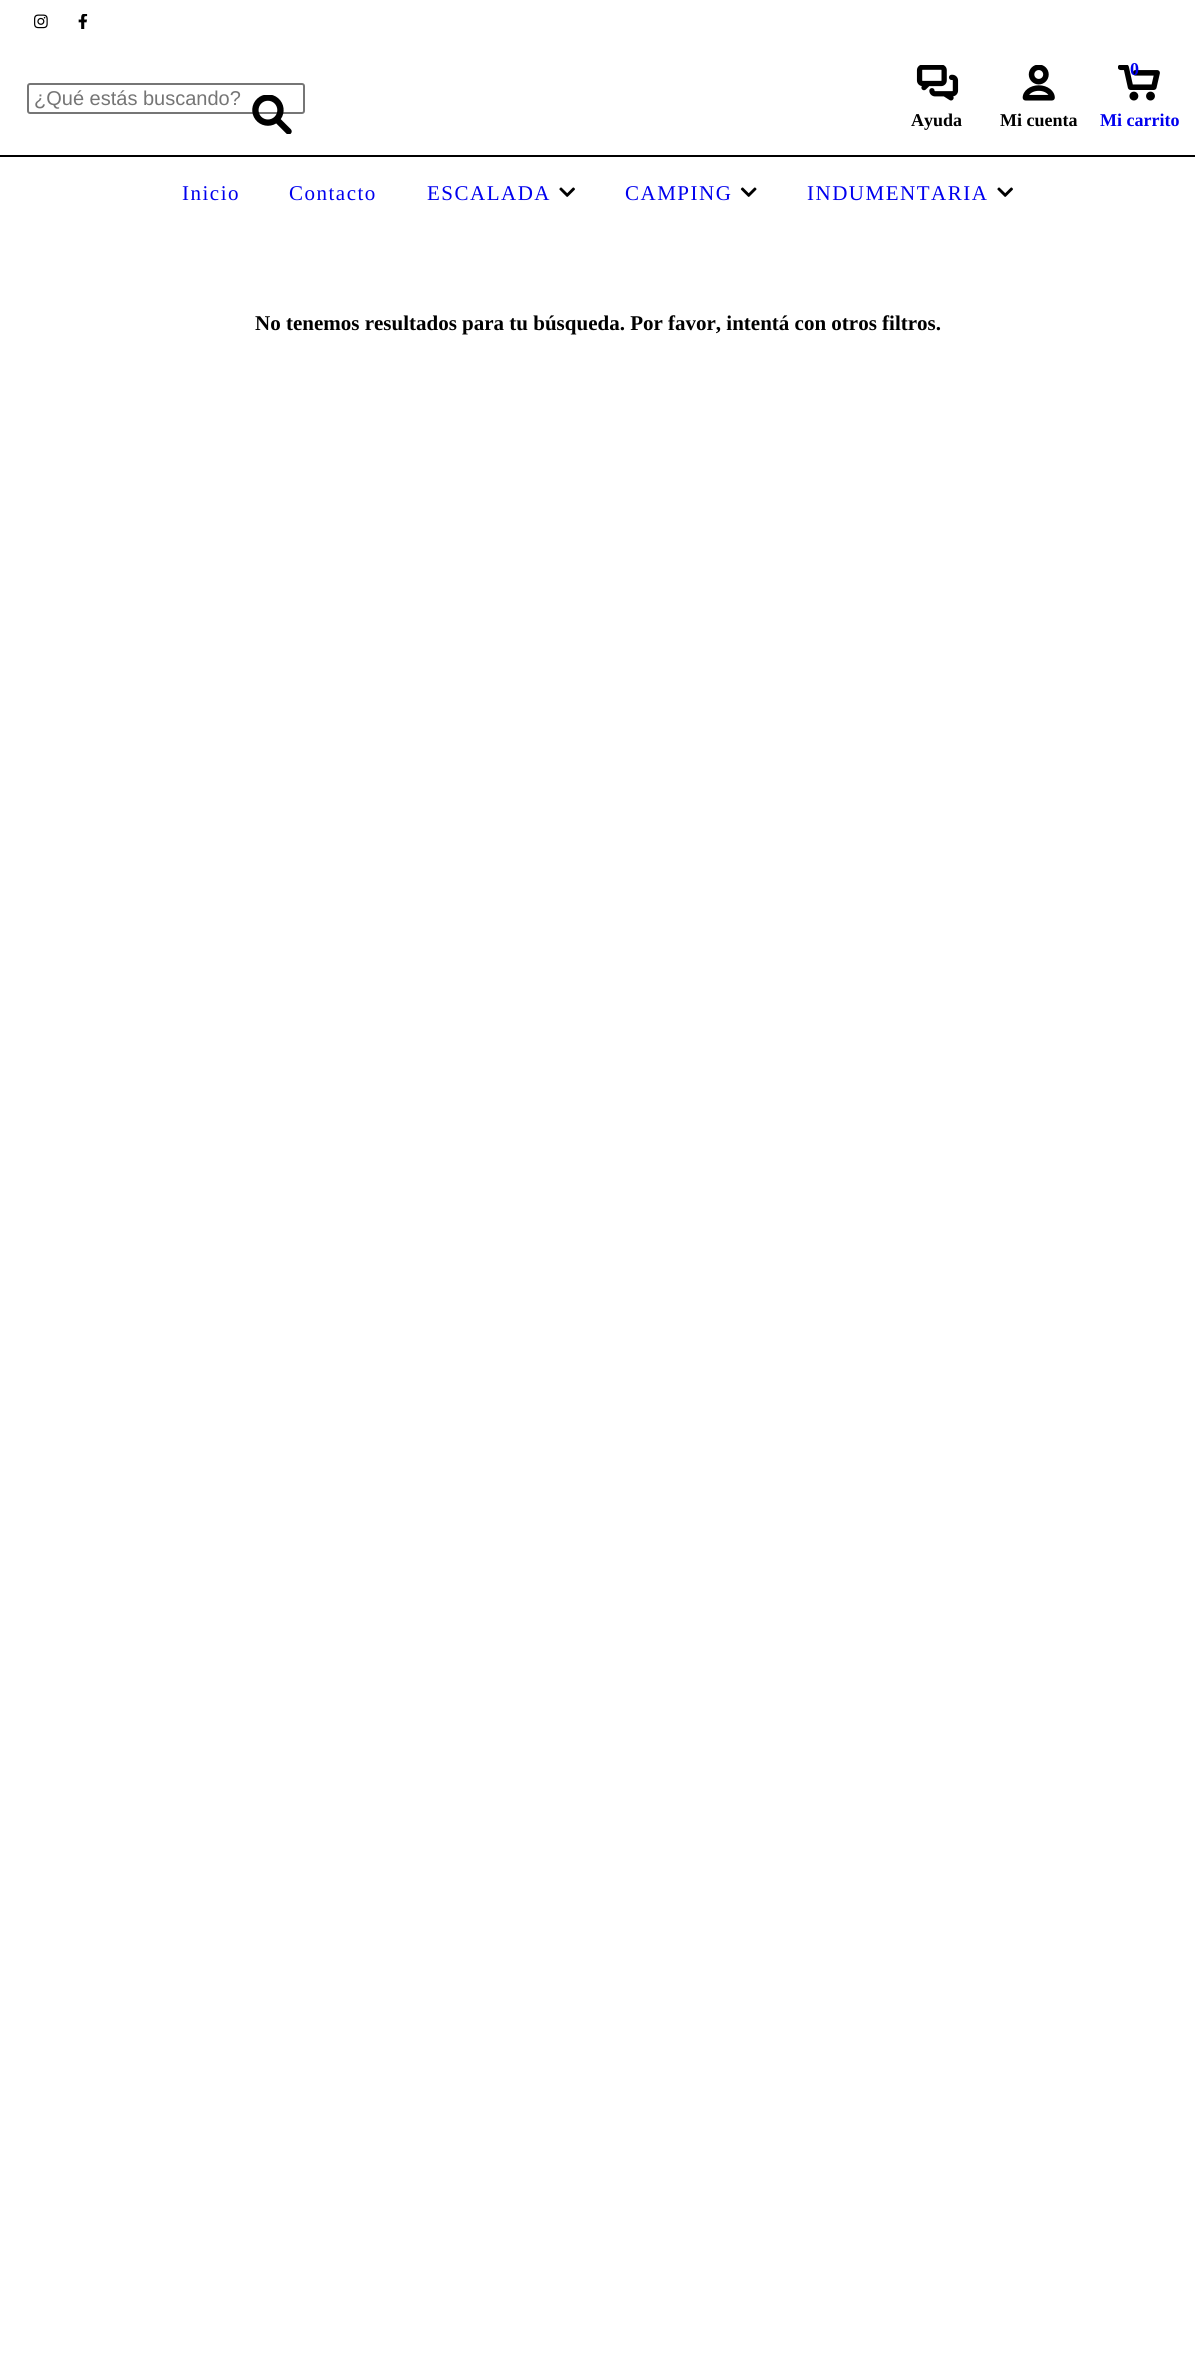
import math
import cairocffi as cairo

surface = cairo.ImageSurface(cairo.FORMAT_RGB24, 1195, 2363)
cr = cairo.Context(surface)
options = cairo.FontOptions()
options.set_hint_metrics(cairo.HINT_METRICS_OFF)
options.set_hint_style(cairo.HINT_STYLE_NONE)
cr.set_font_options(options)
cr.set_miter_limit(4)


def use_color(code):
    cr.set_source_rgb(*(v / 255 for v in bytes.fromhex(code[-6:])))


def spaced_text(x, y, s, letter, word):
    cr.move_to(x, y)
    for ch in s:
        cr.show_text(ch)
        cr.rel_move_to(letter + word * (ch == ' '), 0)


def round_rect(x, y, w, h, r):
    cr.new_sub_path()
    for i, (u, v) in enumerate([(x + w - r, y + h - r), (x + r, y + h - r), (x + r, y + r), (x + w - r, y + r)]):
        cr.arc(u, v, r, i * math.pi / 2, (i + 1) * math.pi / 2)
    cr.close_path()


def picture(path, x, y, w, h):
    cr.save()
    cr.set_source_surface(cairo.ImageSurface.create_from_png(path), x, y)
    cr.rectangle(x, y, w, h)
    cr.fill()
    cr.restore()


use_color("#ffffff")
cr.paint()
picture("img1.png", 34, 14, 14, 15)
picture("img2.png", 78, 14, 10, 15)
round_rect(28, 84, 276, 29, 2)
use_color("#767676")
cr.stroke()
cr.select_font_face("Liberation Sans")
cr.set_font_size(20)
use_color("#757575")
cr.move_to(34, 105)
cr.show_text("¿Qué estás buscando?")
picture("img3.png", 252, 95, 40, 39)
picture("img4.png", 916, 65, 43, 36)
cr.select_font_face("Liberation Serif", cairo.FONT_SLANT_NORMAL, cairo.FONT_WEIGHT_BOLD)
cr.set_font_size(18)
use_color("#000000")
cr.move_to(911, 126)
cr.show_text("Ayuda")
picture("img5.png", 1022, 65, 33, 36)
cr.move_to(1000, 126)
cr.show_text("Mi cuenta")
picture("img6.png", 1118, 65, 42, 36)
use_color("#0000ee")
cr.move_to(1130, 75)
cr.show_text("0")
cr.move_to(1100, 126)
cr.show_text("Mi carrito")
use_color("#000000")
cr.rectangle(0, 155, 1195, 2)
cr.fill()
cr.select_font_face("Liberation Serif")
cr.set_font_size(21)
use_color("#0000ee")
spaced_text(182, 200, "Inicio", 1.5, 0)
spaced_text(289, 200, "Contacto", 1.5, 0)
spaced_text(427, 200, "ESCALADA", 1.5, 0)
picture("img7.png", 559, 187, 16, 10)
spaced_text(625, 200, "CAMPING", 1.5, 0)
picture("img8.png", 740, 187, 17, 10)
spaced_text(807, 200, "INDUMENTARIA", 1.5, 0)
picture("img7.png", 997, 187, 16, 10)
cr.select_font_face("Liberation Serif", cairo.FONT_SLANT_NORMAL, cairo.FONT_WEIGHT_BOLD)
use_color("#000000")
cr.move_to(255, 330)
cr.show_text("No tenemos resultados para tu búsqueda. Por favor, intentá con otros filtros.")
surface.write_to_png("result.png")
